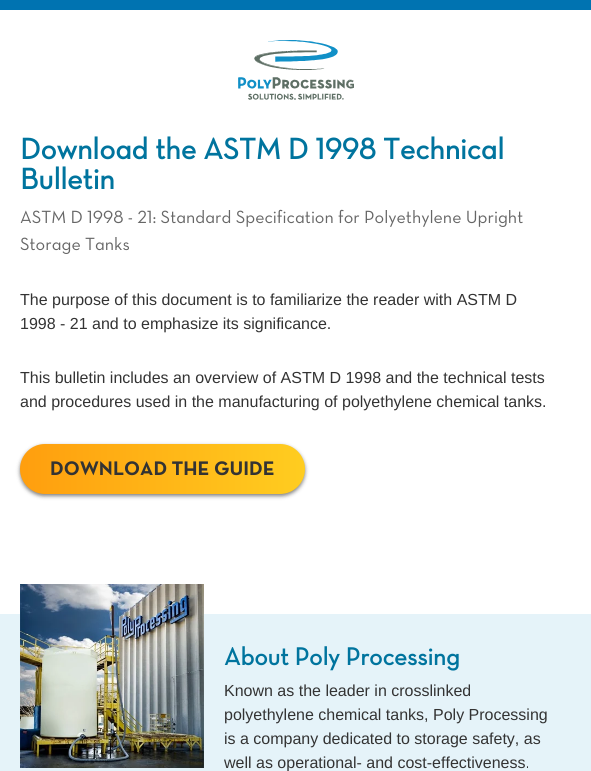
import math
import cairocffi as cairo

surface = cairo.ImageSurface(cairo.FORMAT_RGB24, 591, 771)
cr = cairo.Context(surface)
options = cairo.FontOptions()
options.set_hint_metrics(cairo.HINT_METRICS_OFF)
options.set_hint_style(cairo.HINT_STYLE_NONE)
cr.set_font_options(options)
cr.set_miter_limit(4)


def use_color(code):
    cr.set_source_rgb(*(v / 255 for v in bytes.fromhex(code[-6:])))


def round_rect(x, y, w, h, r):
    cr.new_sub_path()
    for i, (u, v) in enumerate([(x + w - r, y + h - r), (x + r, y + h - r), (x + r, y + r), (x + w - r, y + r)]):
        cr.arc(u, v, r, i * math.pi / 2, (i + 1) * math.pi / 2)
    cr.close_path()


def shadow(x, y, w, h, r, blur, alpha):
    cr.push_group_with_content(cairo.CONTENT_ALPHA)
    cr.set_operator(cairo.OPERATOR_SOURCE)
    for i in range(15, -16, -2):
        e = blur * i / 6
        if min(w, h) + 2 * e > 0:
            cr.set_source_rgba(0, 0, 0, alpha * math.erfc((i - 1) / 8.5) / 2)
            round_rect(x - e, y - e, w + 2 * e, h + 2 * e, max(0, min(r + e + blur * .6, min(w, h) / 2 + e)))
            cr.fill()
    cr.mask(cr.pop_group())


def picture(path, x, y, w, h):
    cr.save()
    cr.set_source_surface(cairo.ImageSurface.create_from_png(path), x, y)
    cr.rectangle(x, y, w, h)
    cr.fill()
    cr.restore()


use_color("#ffffff")
cr.paint()
use_color("#0073b1")
cr.rectangle(0, 0, 591, 10)
cr.fill()
picture("img1.png", 238, 40, 116, 60)
cr.select_font_face("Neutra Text", cairo.FONT_SLANT_NORMAL, cairo.FONT_WEIGHT_BOLD)
cr.set_font_size(30)
use_color("#00749e")
cr.move_to(20, 159)
cr.show_text("Download the ASTM D 1998 Technical")
cr.move_to(20, 189)
cr.show_text("Bulletin")
cr.select_font_face("Neutra Text")
cr.set_font_size(18)
use_color("#666666")
cr.move_to(20, 223)
cr.show_text("ASTM D 1998 - 21: Standard Specification for Polyethylene Upright")
cr.move_to(20, 250)
cr.show_text("Storage Tanks")
cr.select_font_face("Liberation Sans")
cr.set_font_size(16)
use_color("#333333")
cr.move_to(20, 305)
cr.show_text("The purpose of this document is to familiarize the reader with ASTM D")
cr.move_to(20, 329)
cr.show_text("1998 - 21 and to emphasize its significance.")
cr.move_to(20, 383)
cr.show_text("This bulletin includes an overview of ASTM D 1998 and the technical tests")
cr.move_to(20, 407)
cr.show_text("and procedures used in the manufacturing of polyethylene chemical tanks.")
use_color("#000000")
shadow(20, 446, 285, 50, 25, 2, 0.5)
gradient = cairo.LinearGradient(305, 469, 20, 469)
gradient.add_color_stop_rgba(0, 1, 0.804, 0.125, 1)
gradient.add_color_stop_rgba(1, 1, 0.62, 0.055, 1)
cr.set_source(gradient)
round_rect(20, 444, 285, 50, 25)
cr.fill()
cr.select_font_face("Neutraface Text", cairo.FONT_SLANT_NORMAL, cairo.FONT_WEIGHT_BOLD)
cr.set_font_size(20)
use_color("#333333")
cr.move_to(50, 475)
cr.show_text("DOWNLOAD THE GUIDE")
use_color("#e5f3f9")
cr.rectangle(0, 614, 591, 157)
cr.fill()
picture("img2.png", 20, 584, 184, 184)
cr.select_font_face("Neutra Text", cairo.FONT_SLANT_NORMAL, cairo.FONT_WEIGHT_BOLD)
cr.set_font_size(25)
use_color("#00749e")
cr.move_to(224, 665)
cr.show_text("About Poly Processing")
cr.select_font_face("Liberation Sans")
cr.set_font_size(16)
use_color("#333333")
cr.move_to(224, 696)
cr.show_text("Known as the leader in crosslinked")
cr.move_to(224, 720)
cr.show_text("polyethylene chemical tanks, Poly Processing")
cr.move_to(224, 744)
cr.show_text("is a company dedicated to storage safety, as")
cr.move_to(224, 768)
cr.show_text("well as operational- and cost-effectiveness.")
surface.write_to_png("result.png")
